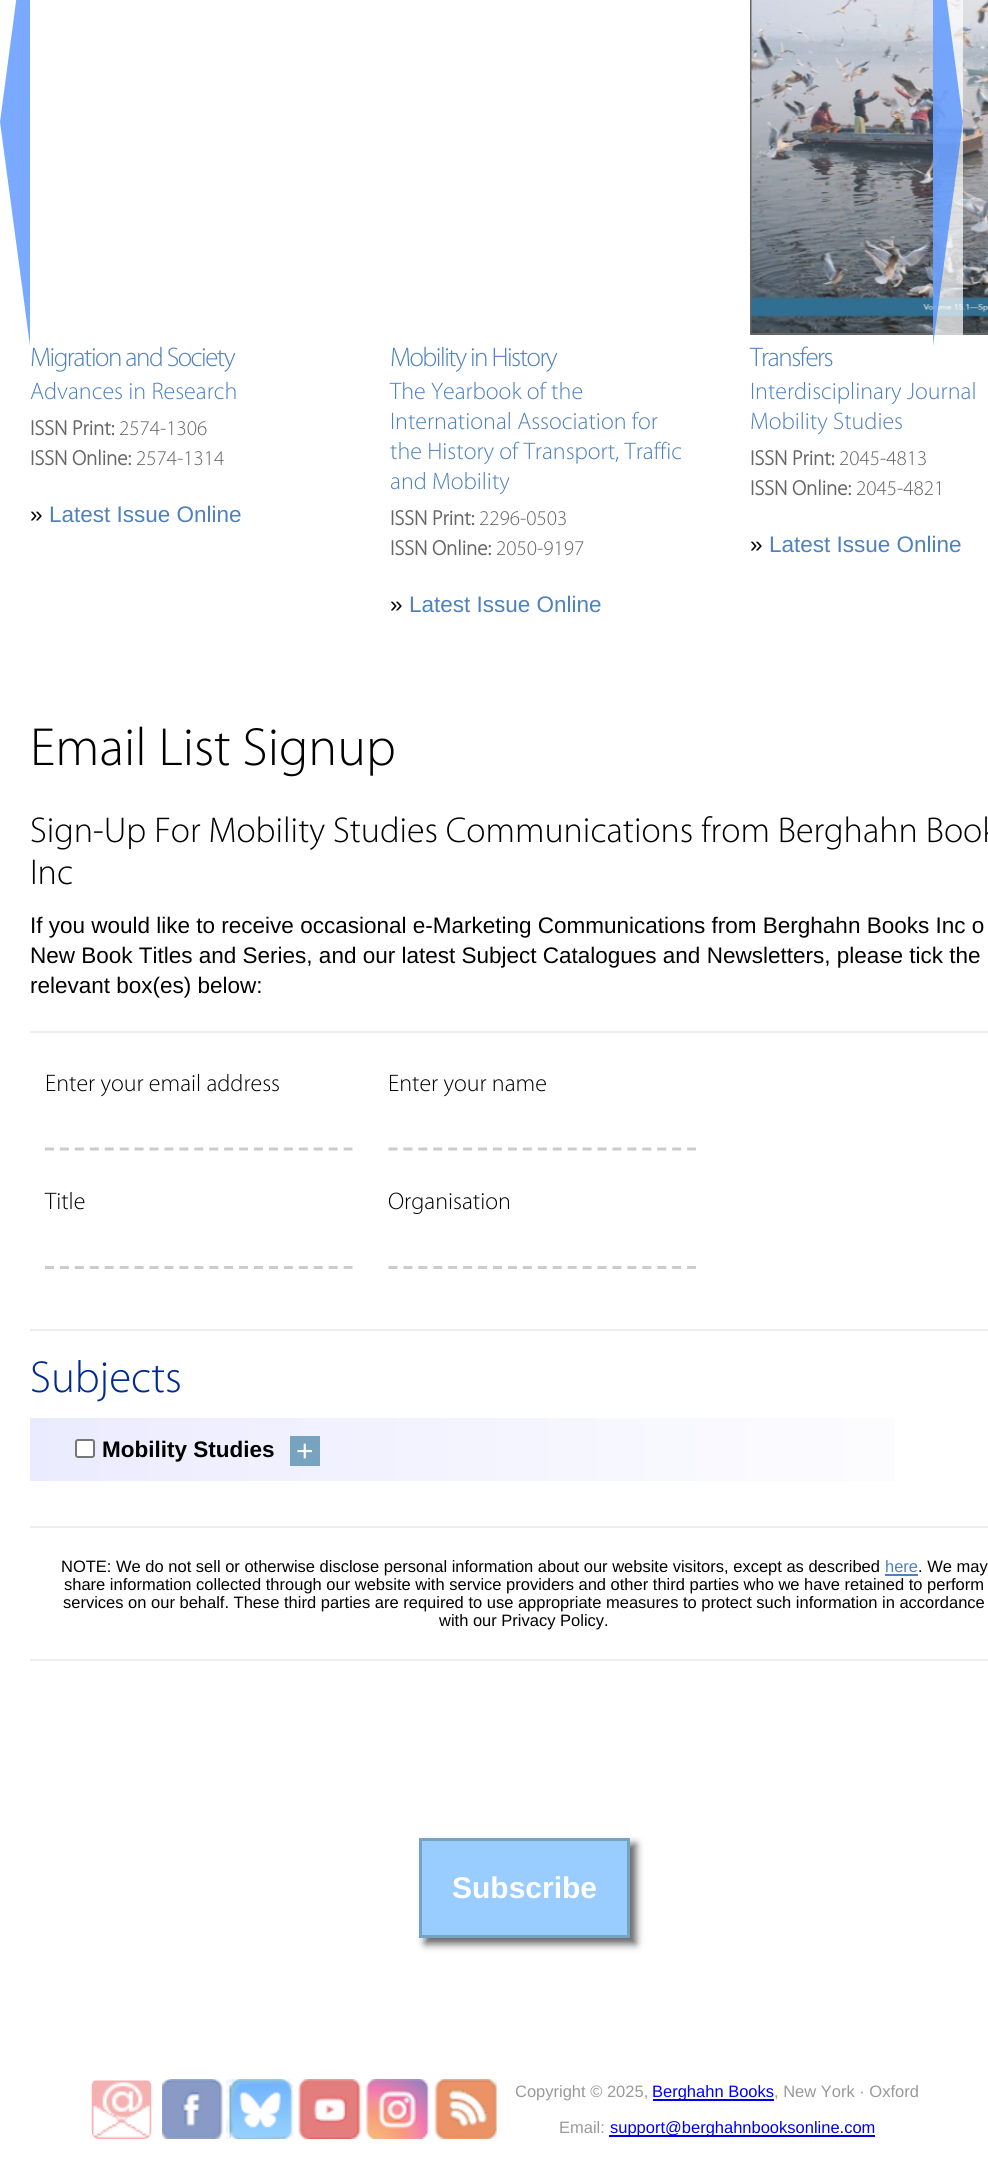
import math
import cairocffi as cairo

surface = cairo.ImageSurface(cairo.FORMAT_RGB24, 988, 2159)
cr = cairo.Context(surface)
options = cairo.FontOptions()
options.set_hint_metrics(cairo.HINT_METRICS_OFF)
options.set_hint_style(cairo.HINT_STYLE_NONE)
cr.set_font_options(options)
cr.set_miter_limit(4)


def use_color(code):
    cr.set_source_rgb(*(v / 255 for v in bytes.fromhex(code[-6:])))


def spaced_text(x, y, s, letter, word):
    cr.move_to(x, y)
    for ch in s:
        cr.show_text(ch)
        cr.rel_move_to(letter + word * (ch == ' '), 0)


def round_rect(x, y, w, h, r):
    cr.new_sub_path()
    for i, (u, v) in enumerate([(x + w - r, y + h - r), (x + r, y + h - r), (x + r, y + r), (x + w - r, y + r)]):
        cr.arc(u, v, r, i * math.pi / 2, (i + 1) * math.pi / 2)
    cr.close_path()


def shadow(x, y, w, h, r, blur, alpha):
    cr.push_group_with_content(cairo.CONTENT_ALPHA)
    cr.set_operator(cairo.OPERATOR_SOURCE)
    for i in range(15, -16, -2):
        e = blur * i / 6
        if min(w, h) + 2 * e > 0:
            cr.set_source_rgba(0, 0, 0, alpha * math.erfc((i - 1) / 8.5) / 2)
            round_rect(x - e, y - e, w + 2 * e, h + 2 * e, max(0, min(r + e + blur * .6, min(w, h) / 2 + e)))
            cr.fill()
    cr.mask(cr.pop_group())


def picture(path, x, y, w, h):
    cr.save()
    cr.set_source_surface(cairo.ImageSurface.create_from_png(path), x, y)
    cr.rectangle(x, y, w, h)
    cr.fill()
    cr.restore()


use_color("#ffffff")
cr.paint()
use_color("#79aaff")
cr.new_path()
cr.move_to(30, -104)
cr.line_to(30, 346)
cr.line_to(0, 122)
cr.close_path()
cr.fill()
cr.rectangle(751, -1, 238, 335)
use_color("#666666")
cr.stroke()
picture("img1.png", 751, 0, 237, 333)
cr.set_source_rgba(1, 1, 1, 0.7)
cr.rectangle(933, 0, 30, 335)
cr.fill()
cr.set_source_rgba(0.247, 0.525, 1, 0.7)
cr.new_path()
cr.move_to(933, 346)
cr.line_to(933, -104)
cr.line_to(963, 122)
cr.close_path()
cr.fill()
cr.select_font_face("Myriad Light")
cr.set_font_size(27)
use_color("#4f81bd")
spaced_text(30, 366, "Migration and Society", -1.5, 0)
cr.set_font_size(24)
cr.move_to(30, 399)
cr.show_text("Advances in Research")
cr.select_font_face("Myriad", cairo.FONT_SLANT_NORMAL, cairo.FONT_WEIGHT_BOLD)
cr.set_font_size(21)
use_color("#666666")
cr.move_to(30, 435)
cr.show_text("ISSN Print:")
cr.select_font_face("Myriad Light")
cr.move_to(119, 435)
cr.show_text("2574-1306")
cr.select_font_face("Myriad", cairo.FONT_SLANT_NORMAL, cairo.FONT_WEIGHT_BOLD)
cr.move_to(30, 465)
cr.show_text("ISSN Online:")
cr.select_font_face("Myriad Light")
cr.move_to(136, 465)
cr.show_text("2574-1314")
cr.select_font_face("Liberation Sans")
cr.set_font_size(22.5)
use_color("#000000")
cr.move_to(30, 522)
cr.show_text("»")
use_color("#4f81bd")
cr.move_to(49, 522)
cr.show_text("Latest Issue Online")
cr.select_font_face("Myriad Light")
cr.set_font_size(27)
spaced_text(390, 366, "Mobility in History", -1.5, 0)
cr.set_font_size(24)
cr.move_to(390, 399)
cr.show_text("The Yearbook of the")
cr.move_to(390, 429)
cr.show_text("International Association for")
cr.move_to(390, 459)
cr.show_text("the History of Transport, Traffic")
cr.move_to(390, 489)
cr.show_text("and Mobility")
cr.select_font_face("Myriad", cairo.FONT_SLANT_NORMAL, cairo.FONT_WEIGHT_BOLD)
cr.set_font_size(21)
use_color("#666666")
cr.move_to(390, 525)
cr.show_text("ISSN Print:")
cr.select_font_face("Myriad Light")
cr.move_to(479, 525)
cr.show_text("2296-0503")
cr.select_font_face("Myriad", cairo.FONT_SLANT_NORMAL, cairo.FONT_WEIGHT_BOLD)
cr.move_to(390, 555)
cr.show_text("ISSN Online:")
cr.select_font_face("Myriad Light")
cr.move_to(496, 555)
cr.show_text("2050-9197")
cr.select_font_face("Liberation Sans")
cr.set_font_size(22.5)
use_color("#000000")
cr.move_to(390, 612)
cr.show_text("»")
use_color("#4f81bd")
cr.move_to(409, 612)
cr.show_text("Latest Issue Online")
cr.select_font_face("Myriad Light")
cr.set_font_size(27)
spaced_text(750, 366, "Transfers", -1.5, 0)
cr.set_font_size(24)
cr.move_to(750, 399)
cr.show_text("Interdisciplinary Journal")
cr.move_to(750, 429)
cr.show_text("Mobility Studies")
cr.select_font_face("Myriad", cairo.FONT_SLANT_NORMAL, cairo.FONT_WEIGHT_BOLD)
cr.set_font_size(21)
use_color("#666666")
cr.move_to(750, 465)
cr.show_text("ISSN Print:")
cr.select_font_face("Myriad Light")
cr.move_to(839, 465)
cr.show_text("2045-4813")
cr.select_font_face("Myriad", cairo.FONT_SLANT_NORMAL, cairo.FONT_WEIGHT_BOLD)
cr.move_to(750, 495)
cr.show_text("ISSN Online:")
cr.select_font_face("Myriad Light")
cr.move_to(856, 495)
cr.show_text("2045-4821")
cr.select_font_face("Liberation Sans")
cr.set_font_size(22.5)
use_color("#000000")
cr.move_to(750, 552)
cr.show_text("»")
use_color("#4f81bd")
cr.move_to(769, 552)
cr.show_text("Latest Issue Online")
cr.select_font_face("Myriad Light")
cr.set_font_size(54)
use_color("#000000")
cr.move_to(30, 765)
cr.show_text("Email List Signup")
cr.set_font_size(36)
cr.move_to(30, 842)
cr.show_text("Sign-Up For Mobility Studies Communications from Berghahn Book")
cr.move_to(30, 884)
cr.show_text("Inc")
cr.select_font_face("Liberation Sans")
cr.set_font_size(22.5)
cr.move_to(30, 933)
cr.show_text("If you would like to receive occasional e-Marketing Communications from Berghahn Books Inc o")
cr.move_to(30, 963)
cr.show_text("New Book Titles and Series, and our latest Subject Catalogues and Newsletters, please tick the")
cr.move_to(30, 993)
cr.show_text("relevant box(es) below:")
use_color("#eeeeee")
cr.rectangle(30, 1031, 958, 2)
cr.fill()
cr.select_font_face("Myriad Light")
cr.set_font_size(24)
use_color("#000000")
cr.move_to(45, 1091)
cr.show_text("Enter your email address")
cr.new_path()
cr.move_to(45, 1149)
cr.line_to(352.5, 1149)
use_color("#cccccc")
cr.set_line_width(3)
cr.set_dash([9, 5.93])
cr.stroke()
use_color("#000000")
cr.move_to(388, 1091)
cr.show_text("Enter your name")
cr.new_path()
cr.move_to(388.5, 1149)
cr.line_to(696, 1149)
use_color("#cccccc")
cr.stroke()
use_color("#000000")
cr.move_to(45, 1209)
cr.show_text("Title")
cr.new_path()
cr.move_to(45, 1267.5)
cr.line_to(352.5, 1267.5)
use_color("#cccccc")
cr.stroke()
use_color("#000000")
cr.move_to(388, 1209)
cr.show_text("Organisation")
cr.new_path()
cr.move_to(388.5, 1267.5)
cr.line_to(696, 1267.5)
use_color("#cccccc")
cr.stroke()
use_color("#eeeeee")
cr.rectangle(30, 1329, 958, 2)
cr.fill()
cr.set_font_size(45)
use_color("#002a92")
cr.move_to(30, 1392)
cr.show_text("Subjects")
gradient = cairo.LinearGradient(30, 1449, 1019, 1449)
gradient.add_color_stop_rgba(0, 0.922, 0.922, 1, 1)
gradient.add_color_stop_rgba(1, 1, 1, 1, 1)
cr.set_source(gradient)
cr.rectangle(30, 1418, 865, 63)
cr.fill()
use_color("#ffffff")
round_rect(76, 1440, 18, 17, 2)
cr.fill_preserve()
use_color("#767676")
cr.set_line_width(2)
cr.set_dash([])
cr.stroke()
cr.select_font_face("Liberation Sans", cairo.FONT_SLANT_NORMAL, cairo.FONT_WEIGHT_BOLD)
cr.set_font_size(22.5)
use_color("#000000")
cr.move_to(102, 1457)
cr.show_text("Mobility Studies")
use_color("#77a3bf")
cr.rectangle(290, 1436, 30, 30)
cr.fill()
cr.select_font_face("Liberation Sans")
cr.set_font_size(30)
use_color("#ffffff")
cr.move_to(296, 1461)
cr.show_text("+")
use_color("#eeeeee")
cr.rectangle(30, 1526, 958, 2)
cr.fill()
cr.set_font_size(16.5)
use_color("#000000")
cr.move_to(61, 1572)
cr.show_text("NOTE: We do not sell or otherwise disclose personal information about our website visitors, except as described")
use_color("#4f81bd")
cr.move_to(885, 1572)
cr.show_text("here")
cr.rectangle(885, 1574, 33, 2)
cr.fill()
use_color("#000000")
cr.move_to(918, 1572)
cr.show_text(". We may")
cr.move_to(64, 1590)
cr.show_text("share information collected through our website with service providers and other third parties who we have retained to perform")
cr.move_to(63, 1608)
cr.show_text("services on our behalf. These third parties are required to use appropriate measures to protect such information in accordance")
cr.move_to(439, 1626)
cr.show_text("with our Privacy Policy.")
use_color("#eeeeee")
cr.rectangle(30, 1659, 958, 2)
cr.fill()
use_color("#666666")
shadow(425, 1844, 211, 100, 0, 4, 1)
use_color("#99ccff")
cr.rectangle(420.5, 1839.5, 208, 97)
cr.fill_preserve()
use_color("#77a3bf")
cr.set_line_width(3)
cr.stroke()
cr.select_font_face("Liberation Sans", cairo.FONT_SLANT_NORMAL, cairo.FONT_WEIGHT_BOLD)
cr.set_font_size(30)
use_color("#ffffff")
cr.move_to(452, 1898)
cr.show_text("Subscribe")
picture("img2.png", 91, 2080, 61, 59)
picture("img3.png", 162, 2079, 68, 60)
picture("img4.png", 229, 2079, 65, 60)
picture("img5.png", 298, 2079, 64, 60)
picture("img6.png", 365, 2079, 65, 60)
picture("img7.png", 434, 2079, 63, 60)
cr.select_font_face("Liberation Sans")
cr.set_font_size(16.5)
use_color("#999999")
cr.move_to(515, 2097)
cr.show_text("Copyright © 2025,")
use_color("#0000ee")
cr.rectangle(653, 2099, 121, 2)
cr.fill()
cr.move_to(652, 2097)
cr.show_text("Berghahn Books")
use_color("#999999")
cr.move_to(774, 2097)
cr.show_text(", New York · Oxford")
cr.move_to(559, 2133)
cr.show_text("Email:")
use_color("#0000ee")
cr.rectangle(609, 2135, 266, 2)
cr.fill()
cr.move_to(610, 2133)
cr.show_text("support@berghahnbooksonline.com")
surface.write_to_png("result.png")
